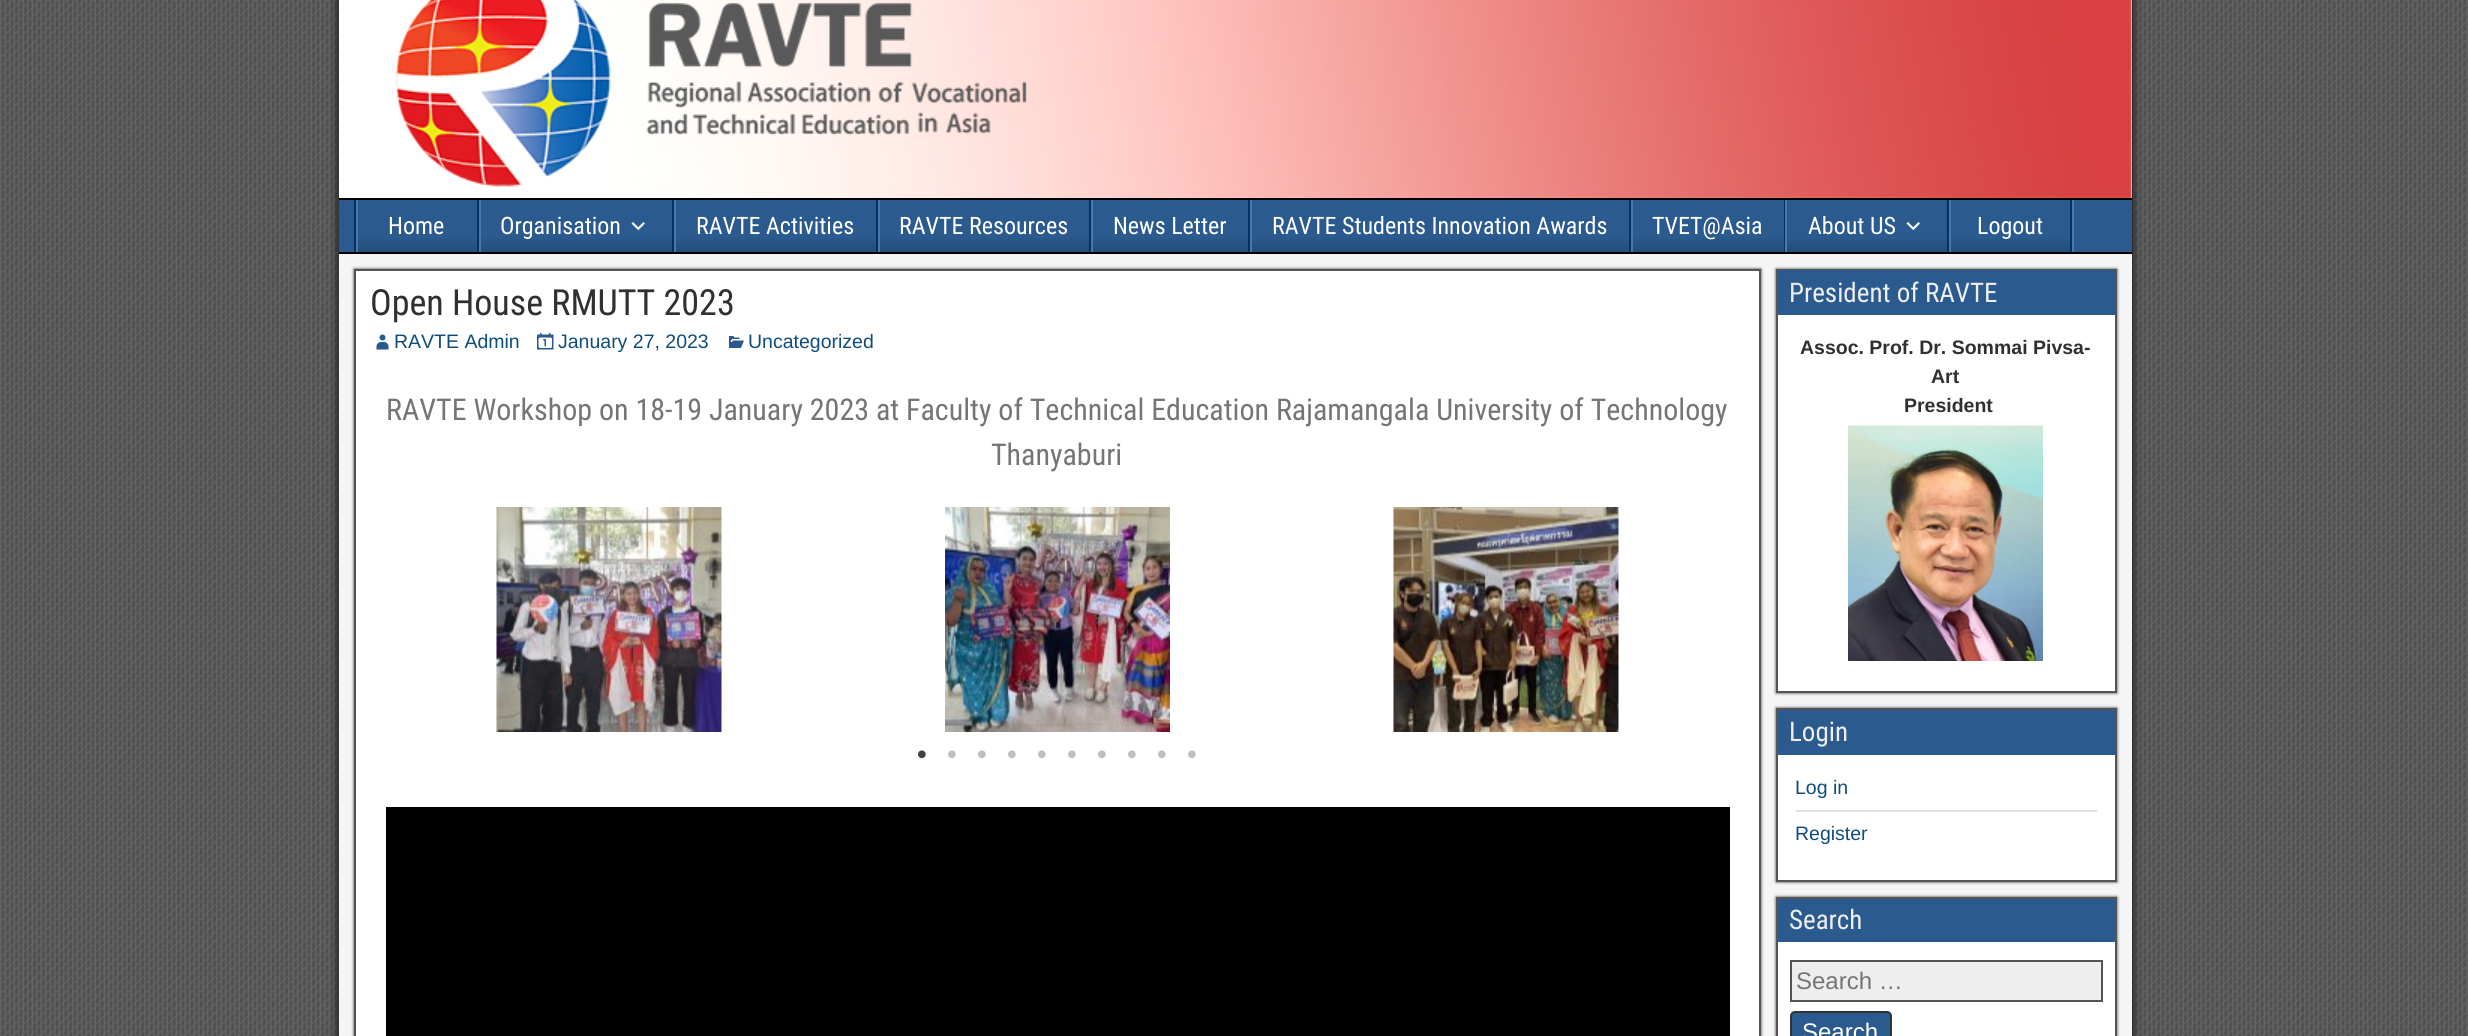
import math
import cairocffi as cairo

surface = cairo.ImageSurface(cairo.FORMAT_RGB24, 2468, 1036)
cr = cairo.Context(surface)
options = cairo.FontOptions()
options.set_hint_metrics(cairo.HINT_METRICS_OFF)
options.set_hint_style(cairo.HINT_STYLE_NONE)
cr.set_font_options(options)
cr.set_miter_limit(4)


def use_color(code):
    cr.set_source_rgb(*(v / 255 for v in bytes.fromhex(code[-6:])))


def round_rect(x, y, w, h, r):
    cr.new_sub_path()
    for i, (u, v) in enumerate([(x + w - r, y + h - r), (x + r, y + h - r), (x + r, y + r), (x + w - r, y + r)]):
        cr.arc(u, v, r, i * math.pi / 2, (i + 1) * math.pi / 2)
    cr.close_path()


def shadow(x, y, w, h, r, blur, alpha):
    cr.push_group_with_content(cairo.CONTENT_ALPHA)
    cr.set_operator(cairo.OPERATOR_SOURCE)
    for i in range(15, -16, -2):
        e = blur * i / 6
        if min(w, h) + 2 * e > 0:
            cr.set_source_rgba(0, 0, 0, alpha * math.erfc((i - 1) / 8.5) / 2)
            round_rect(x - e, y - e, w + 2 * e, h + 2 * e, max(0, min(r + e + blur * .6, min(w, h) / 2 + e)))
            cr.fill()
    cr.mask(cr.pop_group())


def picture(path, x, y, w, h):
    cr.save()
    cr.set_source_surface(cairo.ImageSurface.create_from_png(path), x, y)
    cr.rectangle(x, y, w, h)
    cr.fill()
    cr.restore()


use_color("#505050")
cr.paint()
picture("img1.png", 0, 0, 2468, 1036)
use_color("#000000")
shadow(339, -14, 1793, 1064, 0, 4.5, 1)
use_color("#ffffff")
cr.rectangle(339, 0, 1793, 198)
cr.fill()
picture("img2.png", 395, 0, 1737, 198)
use_color("#000000")
cr.rectangle(339, 198, 1793, 2)
cr.fill()
use_color("#2a5a8e")
cr.rectangle(339, 200, 1793, 52)
cr.fill()
use_color("#000000")
cr.rectangle(339, 252, 1793, 2)
cr.fill()
use_color("#4878ac")
cr.rectangle(2072, 200, 2, 52)
cr.fill()
use_color("#023266")
cr.rectangle(354, 200, 2, 52)
cr.fill()
gradient = cairo.LinearGradient(417, 200, 417, 252)
gradient.add_color_stop_rgba(0.7, 0.165, 0.353, 0.557, 1)
gradient.add_color_stop_rgba(1, 0.141, 0.302, 0.475, 1)
cr.set_source(gradient)
cr.rectangle(358, 238, 119, 14)
cr.fill()
use_color("#023266")
cr.rectangle(477, 200, 2, 52)
cr.fill()
use_color("#4878ac")
cr.rectangle(356, 200, 2, 52)
cr.fill()
cr.select_font_face("Roboto Condensed")
cr.set_font_size(24)
use_color("#ffffff")
cr.move_to(388, 234)
cr.show_text("Home")
gradient = cairo.LinearGradient(576, 200, 576, 252)
gradient.add_color_stop_rgba(0.7, 0.165, 0.353, 0.557, 1)
gradient.add_color_stop_rgba(1, 0.141, 0.302, 0.475, 1)
cr.set_source(gradient)
cr.rectangle(481, 238, 191, 14)
cr.fill()
use_color("#023266")
cr.rectangle(672, 200, 2, 52)
cr.fill()
use_color("#4878ac")
cr.rectangle(479, 200, 2, 52)
cr.fill()
use_color("#ffffff")
cr.move_to(500, 234)
cr.show_text("Organisation")
picture("img3.png", 631, 222, 14, 9)
gradient = cairo.LinearGradient(776, 200, 776, 252)
gradient.add_color_stop_rgba(0.7, 0.165, 0.353, 0.557, 1)
gradient.add_color_stop_rgba(1, 0.141, 0.302, 0.475, 1)
cr.set_source(gradient)
cr.rectangle(676, 238, 200, 14)
cr.fill()
use_color("#023266")
cr.rectangle(876, 200, 2, 52)
cr.fill()
use_color("#4878ac")
cr.rectangle(674, 200, 2, 52)
cr.fill()
use_color("#ffffff")
cr.move_to(696, 234)
cr.show_text("RAVTE Activities")
gradient = cairo.LinearGradient(984, 200, 984, 252)
gradient.add_color_stop_rgba(0.7, 0.165, 0.353, 0.557, 1)
gradient.add_color_stop_rgba(1, 0.141, 0.302, 0.475, 1)
cr.set_source(gradient)
cr.rectangle(880, 238, 209, 14)
cr.fill()
use_color("#023266")
cr.rectangle(1089, 200, 2, 52)
cr.fill()
use_color("#4878ac")
cr.rectangle(878, 200, 2, 52)
cr.fill()
use_color("#ffffff")
cr.move_to(899, 234)
cr.show_text("RAVTE Resources")
gradient = cairo.LinearGradient(1170, 200, 1170, 252)
gradient.add_color_stop_rgba(0.7, 0.165, 0.353, 0.557, 1)
gradient.add_color_stop_rgba(1, 0.141, 0.302, 0.475, 1)
cr.set_source(gradient)
cr.rectangle(1093, 238, 155, 14)
cr.fill()
use_color("#023266")
cr.rectangle(1248, 200, 2, 52)
cr.fill()
use_color("#4878ac")
cr.rectangle(1091, 200, 2, 52)
cr.fill()
use_color("#ffffff")
cr.move_to(1113, 234)
cr.show_text("News Letter")
gradient = cairo.LinearGradient(1440, 200, 1440, 252)
gradient.add_color_stop_rgba(0.7, 0.165, 0.353, 0.557, 1)
gradient.add_color_stop_rgba(1, 0.141, 0.302, 0.475, 1)
cr.set_source(gradient)
cr.rectangle(1252, 238, 377, 14)
cr.fill()
use_color("#023266")
cr.rectangle(1629, 200, 2, 52)
cr.fill()
use_color("#4878ac")
cr.rectangle(1250, 200, 2, 52)
cr.fill()
use_color("#ffffff")
cr.move_to(1272, 234)
cr.show_text("RAVTE Students Innovation Awards")
gradient = cairo.LinearGradient(1708, 200, 1708, 252)
gradient.add_color_stop_rgba(0.7, 0.165, 0.353, 0.557, 1)
gradient.add_color_stop_rgba(1, 0.141, 0.302, 0.475, 1)
cr.set_source(gradient)
cr.rectangle(1633, 238, 151, 14)
cr.fill()
use_color("#023266")
cr.rectangle(1784, 200, 1, 52)
cr.fill()
use_color("#4878ac")
cr.rectangle(1631, 200, 2, 52)
cr.fill()
use_color("#ffffff")
cr.move_to(1652, 234)
cr.show_text("TVET@Asia")
gradient = cairo.LinearGradient(1867, 200, 1867, 252)
gradient.add_color_stop_rgba(0.7, 0, 0, 0, 0)
gradient.add_color_stop_rgba(1, 0, 0, 0, 0.15)
cr.set_source(gradient)
cr.rectangle(1787, 239, 160, 13)
cr.fill()
use_color("#023266")
cr.rectangle(1947, 200, 2, 52)
cr.fill()
use_color("#4878ac")
cr.rectangle(1785, 200, 2, 52)
cr.fill()
use_color("#ffffff")
cr.move_to(1808, 234)
cr.show_text("About US")
picture("img3.png", 1906, 222, 14, 9)
gradient = cairo.LinearGradient(2010, 200, 2010, 252)
gradient.add_color_stop_rgba(0.7, 0.165, 0.353, 0.557, 1)
gradient.add_color_stop_rgba(1, 0.141, 0.302, 0.475, 1)
cr.set_source(gradient)
cr.rectangle(1951, 238, 119, 14)
cr.fill()
use_color("#023266")
cr.rectangle(2070, 200, 2, 52)
cr.fill()
use_color("#4878ac")
cr.rectangle(1949, 200, 2, 52)
cr.fill()
use_color("#ffffff")
cr.move_to(1977, 234)
cr.show_text("Logout")
use_color("#f5f5f5")
cr.rectangle(339, 254, 1793, 782)
cr.fill()
use_color("#333333")
shadow(354, 269, 1407, 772, 0, 1.5, 1)
use_color("#ffffff")
cr.rectangle(355, 270, 1405, 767)
cr.fill_preserve()
use_color("#555555")
cr.stroke()
cr.set_font_size(36)
use_color("#303030")
cr.move_to(370, 315)
cr.show_text("Open House RMUTT 2023")
picture("img4.png", 376, 334, 13, 16)
cr.select_font_face("Liberation Sans")
cr.set_font_size(19.5)
use_color("#0e4d7a")
cr.move_to(394, 348)
cr.show_text("RAVTE Admin")
picture("img5.png", 537, 333, 17, 17)
cr.move_to(558, 348)
cr.show_text("January 27, 2023")
picture("img6.png", 729, 336, 15, 12)
cr.move_to(748, 348)
cr.show_text("Uncategorized")
cr.select_font_face("Roboto Condensed")
cr.set_font_size(30)
use_color("#757575")
cr.move_to(386, 420)
cr.show_text("RAVTE Workshop on 18-19 January 2023 at Faculty of Technical Education Rajamangala University of Technology")
cr.move_to(991, 465)
cr.show_text("Thanyaburi")
picture("img7.png", 496, 507, 226, 225)
picture("img8.png", 945, 507, 225, 225)
picture("img9.png", 1393, 507, 226, 225)
picture("img10.png", 918, 750, 8, 9)
picture("img11.png", 948, 750, 8, 9)
picture("img11.png", 978, 750, 8, 9)
picture("img11.png", 1008, 750, 8, 9)
picture("img11.png", 1038, 750, 8, 9)
picture("img11.png", 1068, 750, 8, 9)
picture("img11.png", 1098, 750, 8, 9)
picture("img11.png", 1128, 750, 8, 9)
picture("img11.png", 1158, 750, 8, 9)
picture("img11.png", 1188, 750, 8, 9)
use_color("#000000")
cr.rectangle(386, 807, 1344, 229)
cr.fill()
use_color("#333333")
shadow(1776, 269, 341, 424, 0, 1.5, 1)
use_color("#ffffff")
cr.rectangle(1778, 315, 337, 376)
cr.fill()
cr.rectangle(1777, 270, 339, 422)
use_color("#555555")
cr.stroke()
use_color("#2a5a8e")
cr.rectangle(1778, 270, 337, 45)
cr.fill()
cr.set_font_size(27)
use_color("#eeeeee")
cr.move_to(1789, 302)
cr.show_text("President of RAVTE")
cr.select_font_face("Liberation Sans", cairo.FONT_SLANT_NORMAL, cairo.FONT_WEIGHT_BOLD)
cr.set_font_size(19.5)
use_color("#303030")
cr.move_to(1800, 354)
cr.show_text("Assoc. Prof. Dr. Sommai Pivsa-")
cr.move_to(1931, 383)
cr.show_text("Art")
cr.move_to(1904, 412)
cr.show_text("President")
picture("img12.png", 1848, 425, 195, 236)
use_color("#333333")
shadow(1776, 708, 341, 174, 0, 1.5, 1)
use_color("#ffffff")
cr.rectangle(1778, 755, 337, 125)
cr.fill()
cr.rectangle(1777, 709, 339, 172)
use_color("#555555")
cr.stroke()
use_color("#2a5a8e")
cr.rectangle(1778, 710, 337, 45)
cr.fill()
cr.select_font_face("Roboto Condensed")
cr.set_font_size(27)
use_color("#eeeeee")
cr.move_to(1789, 741)
cr.show_text("Login")
use_color("#e0e0e0")
cr.rectangle(1796, 810, 301, 2)
cr.fill()
cr.select_font_face("Liberation Sans")
cr.set_font_size(19.5)
use_color("#0e4d7a")
cr.move_to(1795, 794)
cr.show_text("Log in")
cr.move_to(1795, 840)
cr.show_text("Register")
use_color("#333333")
shadow(1776, 897, 341, 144, 0, 1.5, 1)
use_color("#ffffff")
cr.rectangle(1778, 942, 337, 94)
cr.fill()
cr.rectangle(1777, 898, 339, 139)
use_color("#555555")
cr.stroke()
use_color("#2a5a8e")
cr.rectangle(1778, 899, 337, 43)
cr.fill()
cr.select_font_face("Roboto Condensed")
cr.set_font_size(27)
use_color("#eeeeee")
cr.move_to(1789, 929)
cr.show_text("Search")
cr.rectangle(1791, 961, 311, 40)
cr.fill_preserve()
use_color("#555555")
cr.stroke()
cr.select_font_face("Liberation Sans")
cr.set_font_size(24)
use_color("#757575")
cr.move_to(1796, 989)
cr.show_text("Search …")
use_color("#2a5a8e")
round_rect(1791, 1012, 100, 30, 4)
cr.fill_preserve()
use_color("#333333")
cr.stroke()
use_color("#ffffff")
cr.move_to(1802, 1040)
cr.show_text("Search")
surface.write_to_png("result.png")
